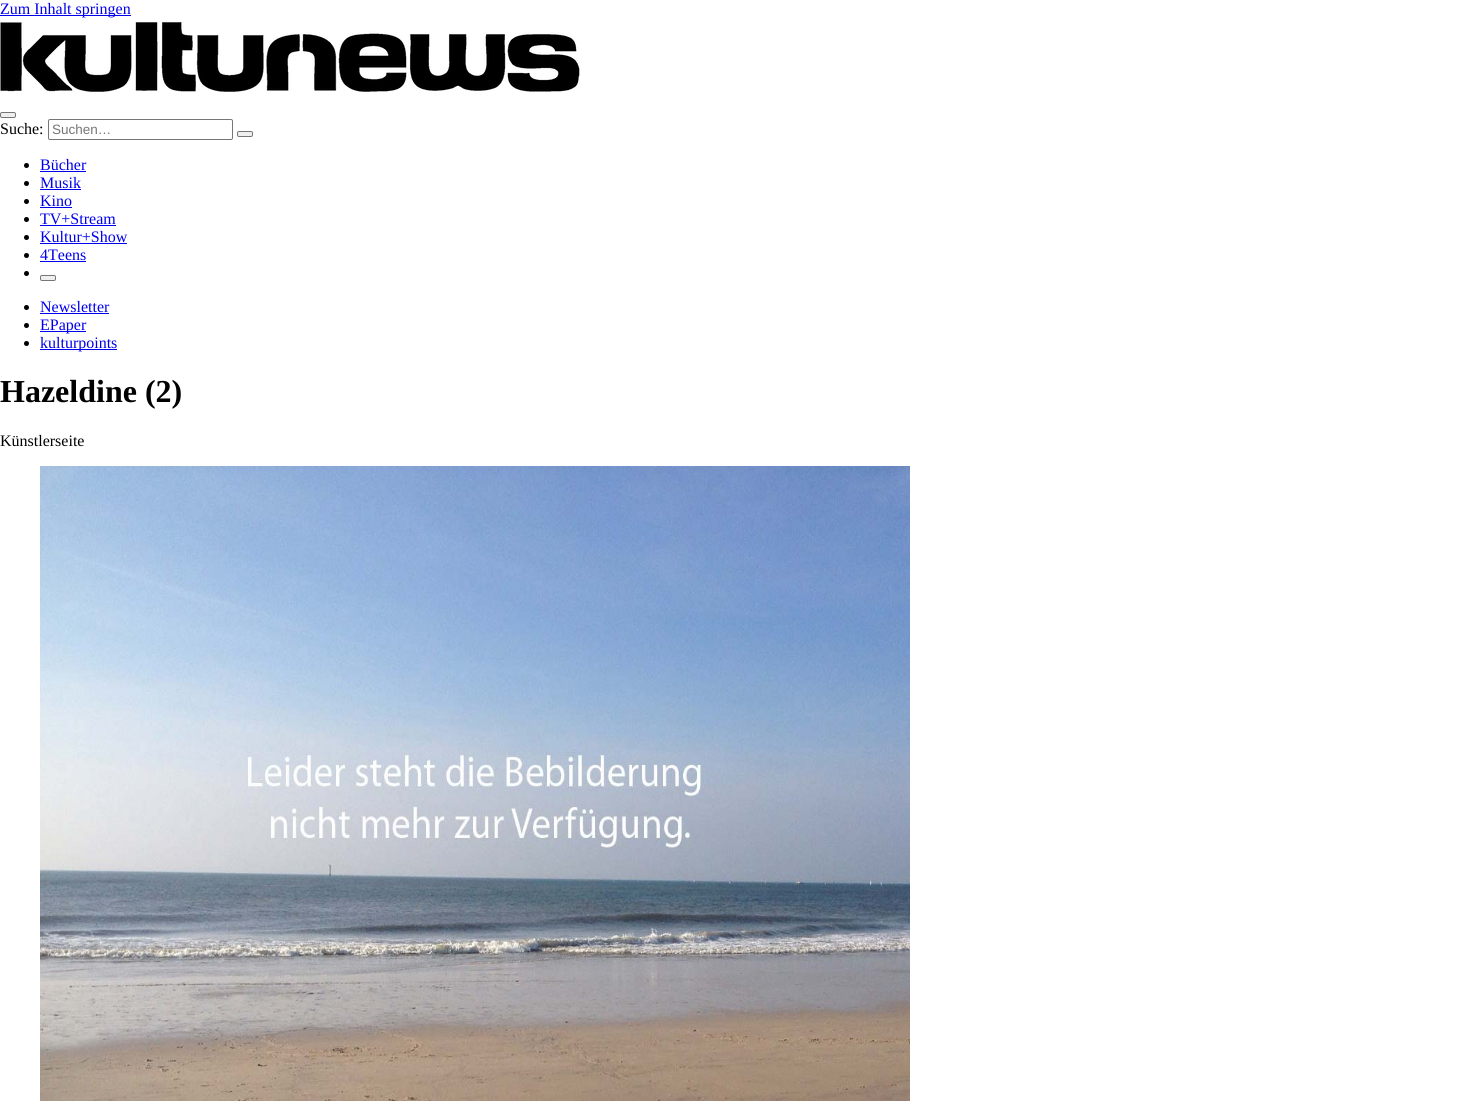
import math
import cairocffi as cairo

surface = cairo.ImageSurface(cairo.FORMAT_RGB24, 1457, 1101)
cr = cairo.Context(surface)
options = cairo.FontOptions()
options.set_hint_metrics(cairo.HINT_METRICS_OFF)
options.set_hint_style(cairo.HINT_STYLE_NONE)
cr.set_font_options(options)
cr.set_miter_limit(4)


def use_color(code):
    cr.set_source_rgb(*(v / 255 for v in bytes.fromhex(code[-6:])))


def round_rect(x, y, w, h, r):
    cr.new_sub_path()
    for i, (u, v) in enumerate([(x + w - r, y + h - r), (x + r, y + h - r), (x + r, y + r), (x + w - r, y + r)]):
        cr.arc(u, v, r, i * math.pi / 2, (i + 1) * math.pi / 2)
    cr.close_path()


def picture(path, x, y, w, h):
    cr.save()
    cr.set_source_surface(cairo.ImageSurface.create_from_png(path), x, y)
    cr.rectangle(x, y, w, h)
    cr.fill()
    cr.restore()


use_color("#ffffff")
cr.paint()
use_color("#0000ee")
cr.rectangle(0, 15, 131, 1)
cr.fill()
cr.select_font_face("Liberation Serif")
cr.set_font_size(16)
cr.move_to(0, 14)
cr.show_text("Zum Inhalt springen")
picture("img1.png", 0, 22, 580, 70)
use_color("#efefef")
round_rect(0.5, 112.5, 15, 5, 1.5)
cr.fill_preserve()
use_color("#767676")
cr.set_line_width(1)
cr.stroke()
use_color("#000000")
cr.move_to(0, 134)
cr.show_text("Suche:")
round_rect(48.5, 119.5, 184, 20, 1.5)
use_color("#767676")
cr.stroke()
cr.select_font_face("Liberation Sans")
cr.set_font_size(13.5)
use_color("#757575")
cr.move_to(52, 134)
cr.show_text("Suchen…")
use_color("#efefef")
round_rect(237.5, 131.5, 15, 5, 1.5)
cr.fill_preserve()
use_color("#767676")
cr.stroke()
use_color("#000000")
cr.arc(26.5, 165.5, 2.5, 0, 2 * math.pi)
cr.fill()
cr.select_font_face("Liberation Serif")
cr.set_font_size(16)
use_color("#0000ee")
cr.move_to(40, 170)
cr.show_text("Bücher")
cr.rectangle(40, 171, 46, 1)
cr.fill()
use_color("#000000")
cr.arc(26.5, 183.5, 2.5, 0, 2 * math.pi)
cr.fill()
use_color("#0000ee")
cr.move_to(40, 188)
cr.show_text("Musik")
cr.rectangle(40, 189, 41, 1)
cr.fill()
use_color("#000000")
cr.arc(26.5, 201.5, 2.5, 0, 2 * math.pi)
cr.fill()
use_color("#0000ee")
cr.move_to(40, 206)
cr.show_text("Kino")
cr.rectangle(40, 207, 32, 1)
cr.fill()
use_color("#000000")
cr.arc(26.5, 219.5, 2.5, 0, 2 * math.pi)
cr.fill()
use_color("#0000ee")
cr.move_to(40, 224)
cr.show_text("TV+Stream")
cr.rectangle(40, 225, 76, 1)
cr.fill()
use_color("#000000")
cr.arc(26.5, 237.5, 2.5, 0, 2 * math.pi)
cr.fill()
use_color("#0000ee")
cr.move_to(40, 242)
cr.show_text("Kultur+Show")
cr.rectangle(40, 243, 87, 1)
cr.fill()
use_color("#000000")
cr.arc(26.5, 255.5, 2.5, 0, 2 * math.pi)
cr.fill()
use_color("#0000ee")
cr.move_to(40, 260)
cr.show_text("4Teens")
cr.rectangle(40, 261, 46, 1)
cr.fill()
use_color("#000000")
cr.arc(26.5, 273.5, 2.5, 0, 2 * math.pi)
cr.fill()
use_color("#efefef")
round_rect(40.5, 275.5, 15, 5, 1.5)
cr.fill_preserve()
use_color("#767676")
cr.stroke()
use_color("#000000")
cr.arc(26.5, 307.5, 2.5, 0, 2 * math.pi)
cr.fill()
use_color("#0000ee")
cr.move_to(40, 312)
cr.show_text("Newsletter")
cr.rectangle(40, 313, 69, 1)
cr.fill()
use_color("#000000")
cr.arc(26.5, 325.5, 2.5, 0, 2 * math.pi)
cr.fill()
use_color("#0000ee")
cr.rectangle(40, 331, 46, 1)
cr.fill()
cr.move_to(40, 330)
cr.show_text("EPaper")
use_color("#000000")
cr.new_path()
cr.arc(26.5, 343.5, 2.5, 0, 2 * math.pi)
cr.fill()
use_color("#0000ee")
cr.rectangle(40, 349, 77, 1)
cr.fill()
cr.move_to(40, 348)
cr.show_text("kulturpoints")
cr.select_font_face("Liberation Serif", cairo.FONT_SLANT_NORMAL, cairo.FONT_WEIGHT_BOLD)
cr.set_font_size(32)
use_color("#000000")
cr.move_to(0, 402)
cr.show_text("Hazeldine (2)")
cr.select_font_face("Liberation Serif")
cr.set_font_size(16)
cr.move_to(0, 446)
cr.show_text("Künstlerseite")
picture("img2.png", 40, 466, 870, 635)
surface.write_to_png("result.png")
